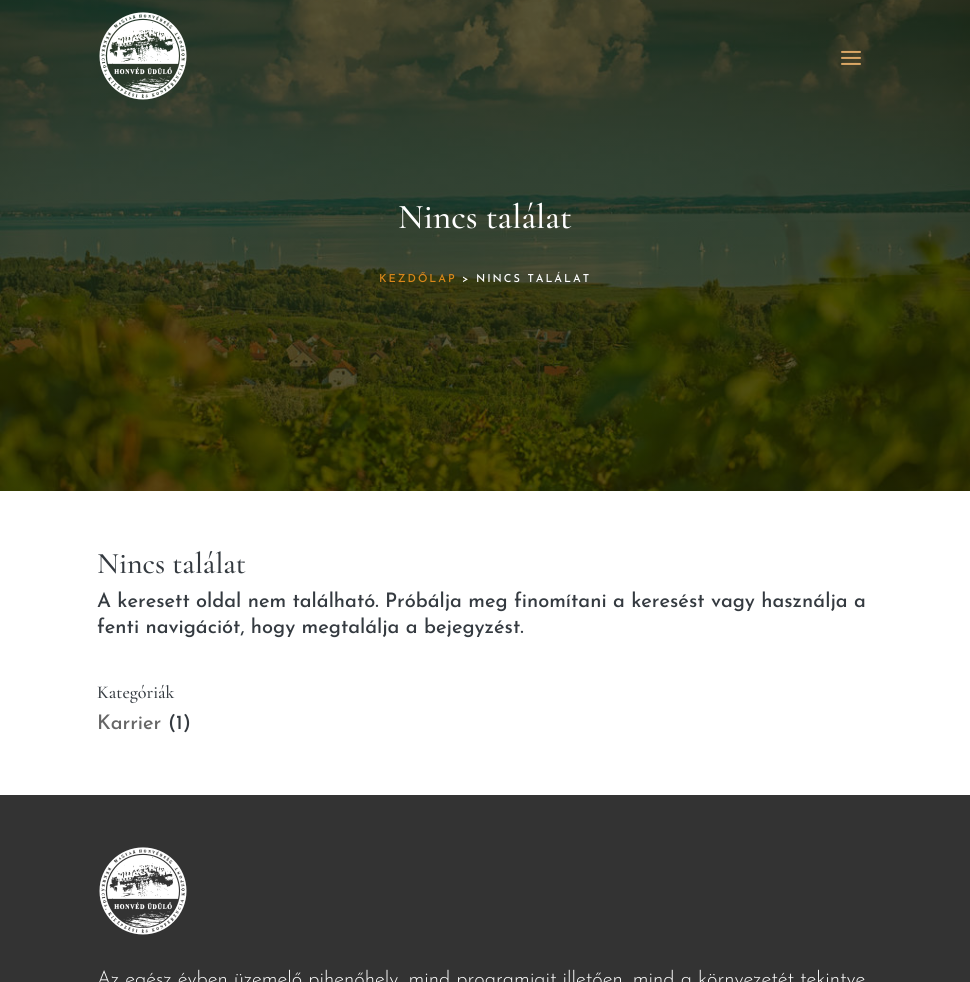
import math
import cairocffi as cairo

surface = cairo.ImageSurface(cairo.FORMAT_RGB24, 970, 982)
cr = cairo.Context(surface)
options = cairo.FontOptions()
options.set_hint_metrics(cairo.HINT_METRICS_OFF)
options.set_hint_style(cairo.HINT_STYLE_NONE)
cr.set_font_options(options)
cr.set_miter_limit(4)


def use_color(code):
    cr.set_source_rgb(*(v / 255 for v in bytes.fromhex(code[-6:])))


def spaced_text(x, y, s, letter, word):
    cr.move_to(x, y)
    for ch in s:
        cr.show_text(ch)
        cr.rel_move_to(letter + word * (ch == ' '), 0)


def picture(path, x, y, w, h):
    cr.save()
    cr.set_source_surface(cairo.ImageSurface.create_from_png(path), x, y)
    cr.rectangle(x, y, w, h)
    cr.fill()
    cr.restore()


use_color("#ffffff")
cr.paint()
picture("img3.png", 0, 0, 970, 491)
picture("img1.png", 99, 12, 88, 88)
picture("img2.png", 841, 50, 20, 15)
cr.select_font_face("Cormorant Garamond Medium")
cr.set_font_size(35)
use_color("#ffffff")
cr.move_to(398, 228)
cr.show_text("Nincs találat")
cr.select_font_face("Josefin Sans Medium")
cr.set_font_size(11)
use_color("#db871a")
spaced_text(379, 282, "KEZDŐLAP", 2, 0)
use_color("#ffffff")
spaced_text(462, 282, "> NINCS TALÁLAT", 2, 0)
cr.select_font_face("Cormorant Garamond Medium")
cr.set_font_size(30)
use_color("#343a40")
cr.move_to(97, 573)
cr.show_text("Nincs találat")
cr.select_font_face("Josefin Sans Medium")
cr.set_font_size(20)
cr.move_to(97, 607)
cr.show_text("A keresett oldal nem található. Próbálja meg finomítani a keresést vagy használja a")
cr.move_to(97, 633)
cr.show_text("fenti navigációt, hogy megtalálja a bejegyzést.")
cr.select_font_face("Cormorant Garamond Medium")
cr.set_font_size(18)
cr.move_to(97, 698)
cr.show_text("Kategóriák")
cr.select_font_face("Josefin Sans Medium")
cr.set_font_size(20)
use_color("#666666")
cr.move_to(97, 729)
cr.show_text("Karrier")
use_color("#343a40")
cr.move_to(168, 729)
cr.show_text("(1)")
use_color("#333333")
cr.rectangle(0, 795, 970, 187)
cr.fill()
picture("img4.png", 99, 847, 88, 88)
cr.select_font_face("Josefin Sans Light")
use_color("#ffffff")
cr.move_to(97, 985)
cr.show_text("Az egész évben üzemelő pihenőhely, mind programjait illetően, mind a környezetét tekintve")
surface.write_to_png("result.png")
